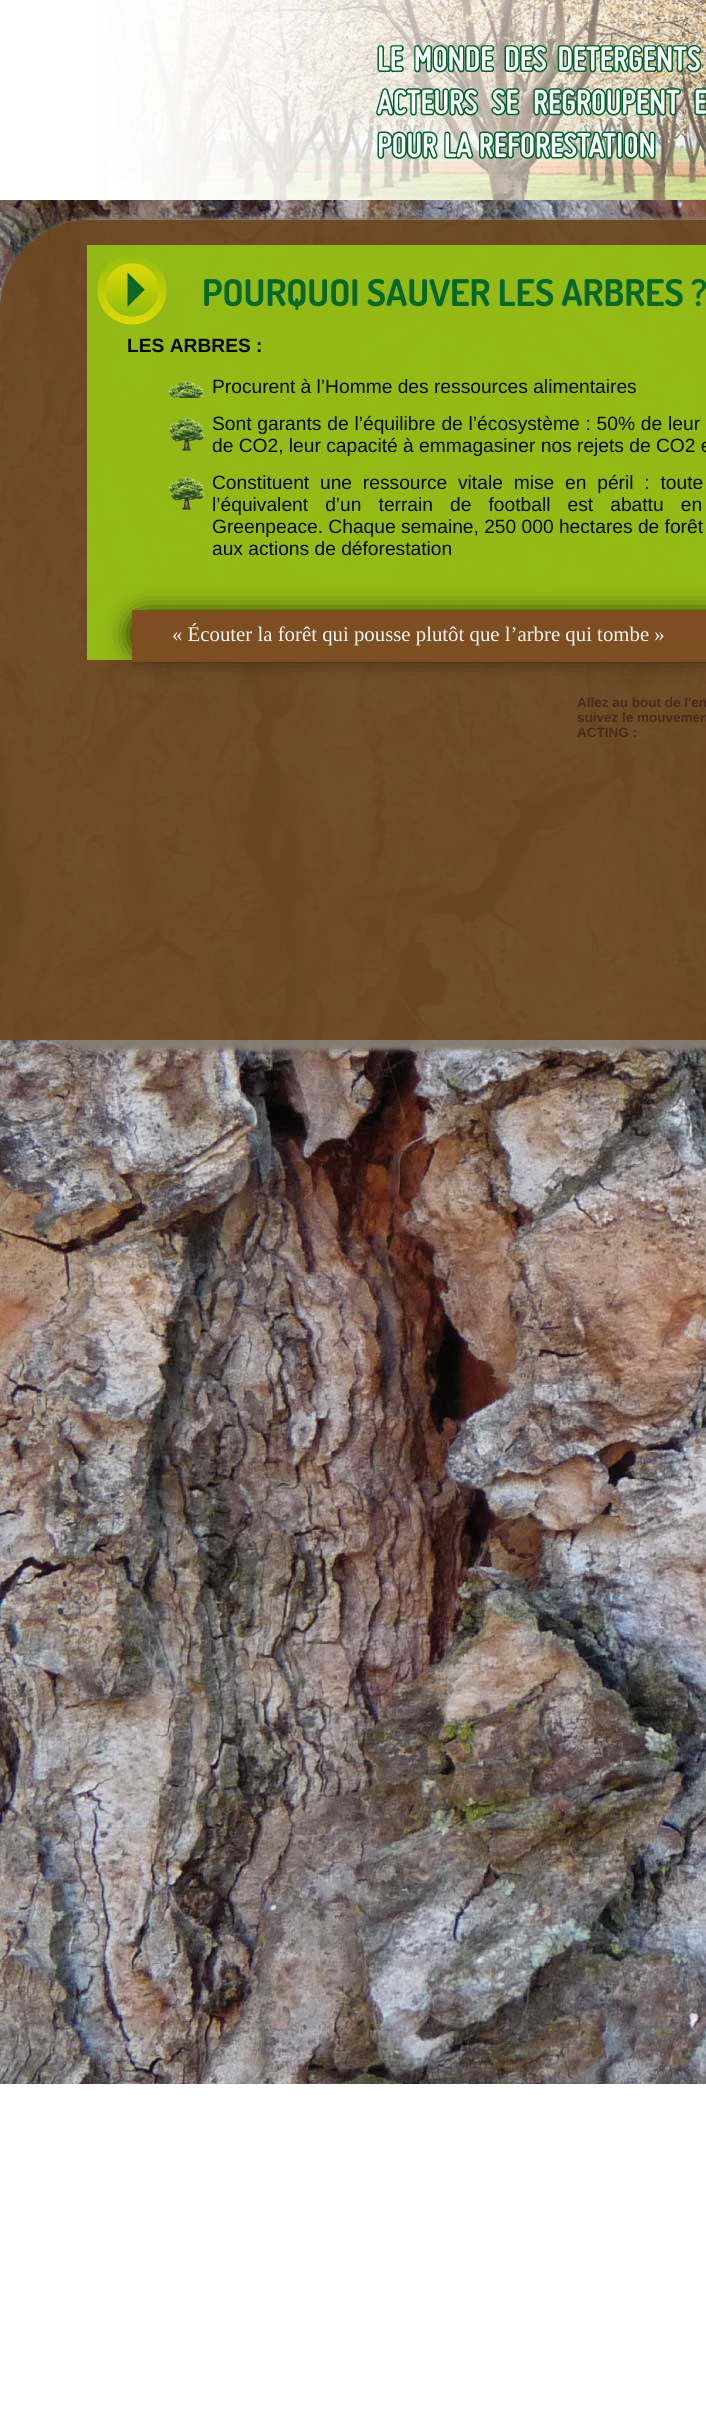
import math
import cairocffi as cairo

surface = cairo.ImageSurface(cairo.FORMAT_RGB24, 706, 2429)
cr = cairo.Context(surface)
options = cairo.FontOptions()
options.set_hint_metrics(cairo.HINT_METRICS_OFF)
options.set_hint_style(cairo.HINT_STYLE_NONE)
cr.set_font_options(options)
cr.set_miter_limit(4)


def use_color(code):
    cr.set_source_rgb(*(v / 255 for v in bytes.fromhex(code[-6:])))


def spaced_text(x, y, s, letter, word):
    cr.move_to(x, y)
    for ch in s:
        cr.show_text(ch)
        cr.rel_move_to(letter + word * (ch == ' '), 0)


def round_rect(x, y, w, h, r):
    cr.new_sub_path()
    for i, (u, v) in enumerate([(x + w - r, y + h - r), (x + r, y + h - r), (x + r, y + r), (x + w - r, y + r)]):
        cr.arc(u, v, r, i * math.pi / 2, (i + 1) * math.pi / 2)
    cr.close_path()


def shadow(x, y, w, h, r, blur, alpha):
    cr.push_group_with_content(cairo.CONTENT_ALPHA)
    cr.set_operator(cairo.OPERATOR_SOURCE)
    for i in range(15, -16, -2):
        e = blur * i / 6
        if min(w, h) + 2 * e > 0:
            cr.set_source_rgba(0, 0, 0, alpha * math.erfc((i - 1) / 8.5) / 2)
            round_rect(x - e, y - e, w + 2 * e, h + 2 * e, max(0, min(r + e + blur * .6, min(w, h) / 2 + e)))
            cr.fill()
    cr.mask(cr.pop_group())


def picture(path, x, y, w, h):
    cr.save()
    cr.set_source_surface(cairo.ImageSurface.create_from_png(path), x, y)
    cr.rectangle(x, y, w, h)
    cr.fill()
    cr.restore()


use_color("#ffffff")
cr.paint()
picture("img1.png", 0, 200, 706, 1884)
picture("img2.png", 0, 0, 706, 200)
cr.save()
cr.set_fill_rule(cairo.FILL_RULE_EVEN_ODD)
cr.new_path()
cr.move_to(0, 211)
cr.line_to(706, 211)
cr.line_to(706, 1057)
cr.line_to(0, 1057)
cr.close_path()
cr.move_to(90, 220)
cr.line_to(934, 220)
cr.curve_to(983.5, 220, 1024, 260.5, 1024, 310)
cr.line_to(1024, 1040)
cr.line_to(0, 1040)
cr.line_to(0, 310)
cr.curve_to(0, 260.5, 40.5, 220, 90, 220)
cr.close_path()
cr.clip()
use_color("#847c72")
shadow(-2, 218, 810, 832, 96, 2, 0.95)
cr.restore()
cr.set_source_rgba(0.431, 0.286, 0.137, 0.95)
cr.new_path()
cr.move_to(90, 220)
cr.line_to(706, 220)
cr.curve_to(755.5, 220, 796, 260.5, 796, 310)
cr.line_to(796, 1040)
cr.line_to(0, 1040)
cr.line_to(0, 310)
cr.curve_to(0, 260.5, 40.5, 220, 90, 220)
cr.close_path()
cr.fill()
cr.set_source_rgba(0.592, 0.749, 0.086, 0.95)
cr.rectangle(87, 245, 619, 415)
cr.fill()
picture("img3.png", 97, 256, 70, 69)
cr.select_font_face("Dosis", cairo.FONT_SLANT_NORMAL, cairo.FONT_WEIGHT_BOLD)
cr.set_font_size(36.75)
use_color("#07682a")
cr.move_to(202, 306)
cr.show_text("POURQUOI SAUVER LES ARBRES ?")
cr.select_font_face("Liberation Sans", cairo.FONT_SLANT_NORMAL, cairo.FONT_WEIGHT_BOLD)
cr.set_font_size(19.2)
use_color("#070901")
cr.move_to(127, 352)
cr.show_text("LES ARBRES :")
picture("img4.png", 168, 380, 37, 18)
cr.select_font_face("Liberation Sans")
cr.move_to(212, 393)
cr.show_text("Procurent à l’Homme des ressources alimentaires")
picture("img5.png", 168, 417, 37, 34)
spaced_text(212, 430, "Sont garants de l’équilibre de l’écosystème : 50% de leur", 0, 0.5)
cr.move_to(212, 452)
cr.show_text("de CO2, leur capacité à emmagasiner nos rejets de CO2 e")
picture("img6.png", 168, 476, 37, 34)
spaced_text(212, 489, "Constituent une ressource vitale mise en péril : toute", 0, 5.5)
spaced_text(212, 511, "l’équivalent d’un terrain de football est abattu en", 0, 11.75)
cr.move_to(212, 533)
cr.show_text("Greenpeace. Chaque semaine, 250 000 hectares de forêt")
cr.move_to(212, 555)
cr.show_text("aux actions de déforestation")
cr.save()
cr.set_fill_rule(cairo.FILL_RULE_EVEN_ODD)
cr.new_path()
cr.move_to(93, 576)
cr.line_to(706, 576)
cr.line_to(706, 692)
cr.line_to(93, 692)
cr.close_path()
cr.move_to(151, 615)
cr.line_to(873, 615)
cr.curve_to(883.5, 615, 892, 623.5, 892, 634)
cr.curve_to(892, 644.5, 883.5, 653, 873, 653)
cr.line_to(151, 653)
cr.curve_to(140.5, 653, 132, 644.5, 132, 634)
cr.curve_to(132, 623.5, 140.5, 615, 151, 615)
cr.close_path()
cr.clip()
use_color("#000000")
shadow(132, 615, 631, 38, 19, 12.5, 0.95)
cr.restore()
cr.set_source_rgba(0.49, 0.306, 0.133, 0.95)
round_rect(132, 615, 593, 38, 19)
cr.fill()
cr.rectangle(132, 610, 574, 52)
cr.fill()
cr.select_font_face("Liberation Serif")
cr.set_font_size(20.8)
use_color("#f9f6f4")
cr.move_to(172, 641)
cr.show_text("« Écouter la forêt qui pousse plutôt que l’arbre qui tombe »")
cr.select_font_face("Liberation Sans", cairo.FONT_SLANT_NORMAL, cairo.FONT_WEIGHT_BOLD)
cr.set_font_size(13.5)
use_color("#482a1b")
cr.move_to(577, 707)
cr.show_text("Allez au bout de l'en")
cr.move_to(577, 722)
cr.show_text("suivez le mouvemen")
cr.move_to(577, 737)
cr.show_text("ACTING :")
surface.write_to_png("result.png")
